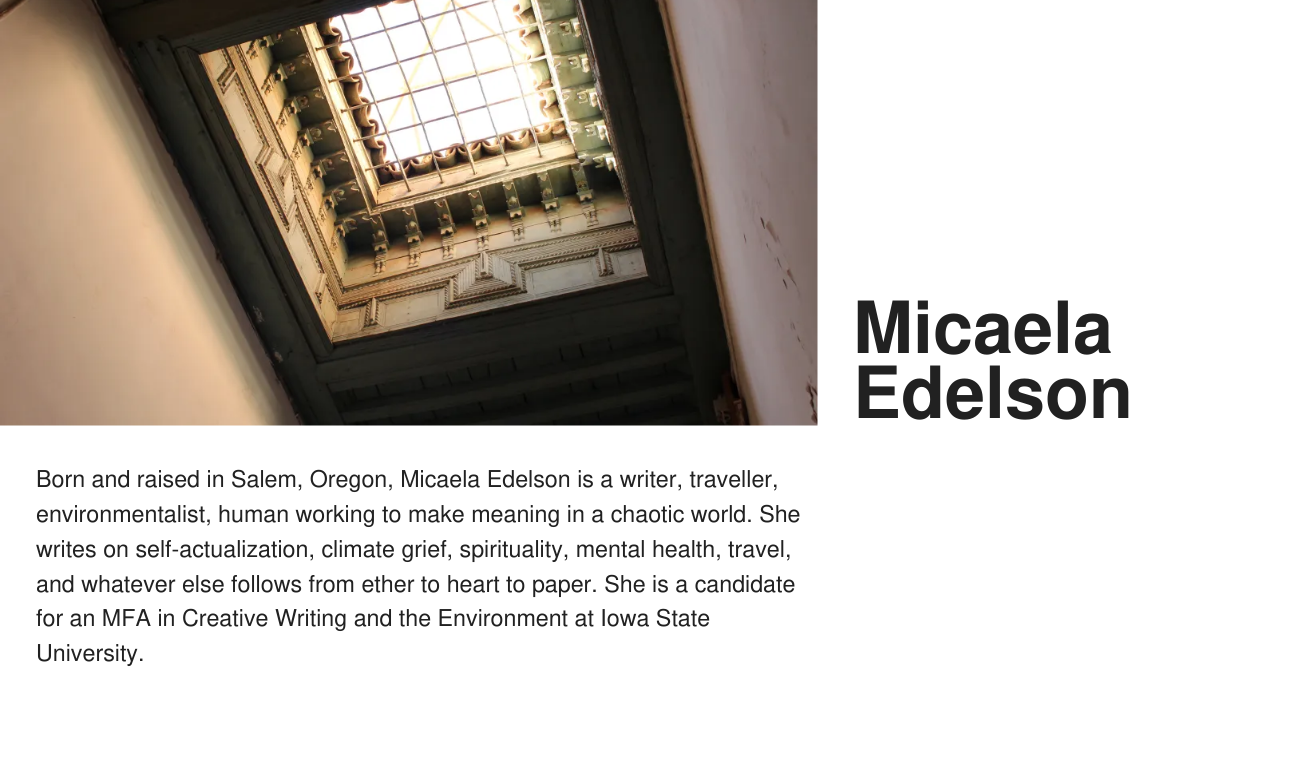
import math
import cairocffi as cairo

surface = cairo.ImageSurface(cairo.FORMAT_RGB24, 1300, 776)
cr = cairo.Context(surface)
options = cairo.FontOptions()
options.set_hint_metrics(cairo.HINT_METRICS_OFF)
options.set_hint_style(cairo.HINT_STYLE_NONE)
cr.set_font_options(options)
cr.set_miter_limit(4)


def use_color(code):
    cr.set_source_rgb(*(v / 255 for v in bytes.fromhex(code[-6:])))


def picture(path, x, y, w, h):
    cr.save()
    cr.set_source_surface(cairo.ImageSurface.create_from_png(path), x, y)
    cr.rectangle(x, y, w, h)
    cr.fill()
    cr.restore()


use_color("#ffffff")
cr.paint()
picture("img1.png", 0, 0, 818, 426)
cr.select_font_face("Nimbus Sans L", cairo.FONT_SLANT_NORMAL, cairo.FONT_WEIGHT_BOLD)
cr.set_font_size(72)
use_color("#212121")
cr.move_to(853, 353)
cr.show_text("Micaela")
cr.move_to(853, 418)
cr.show_text("Edelson")
cr.select_font_face("Nimbus Sans L")
cr.set_font_size(23.25)
cr.move_to(36, 487)
cr.show_text("Born and raised in Salem, Oregon, Micaela Edelson is a writer, traveller,")
cr.move_to(36, 522)
cr.show_text("environmentalist, human working to make meaning in a chaotic world. She")
cr.move_to(36, 557)
cr.show_text("writes on self-actualization, climate grief, spirituality, mental health, travel,")
cr.move_to(36, 592)
cr.show_text("and whatever else follows from ether to heart to paper. She is a candidate")
cr.move_to(36, 626)
cr.show_text("for an MFA in Creative Writing and the Environment at Iowa State")
cr.move_to(36, 661)
cr.show_text("University.")
surface.write_to_png("result.png")
